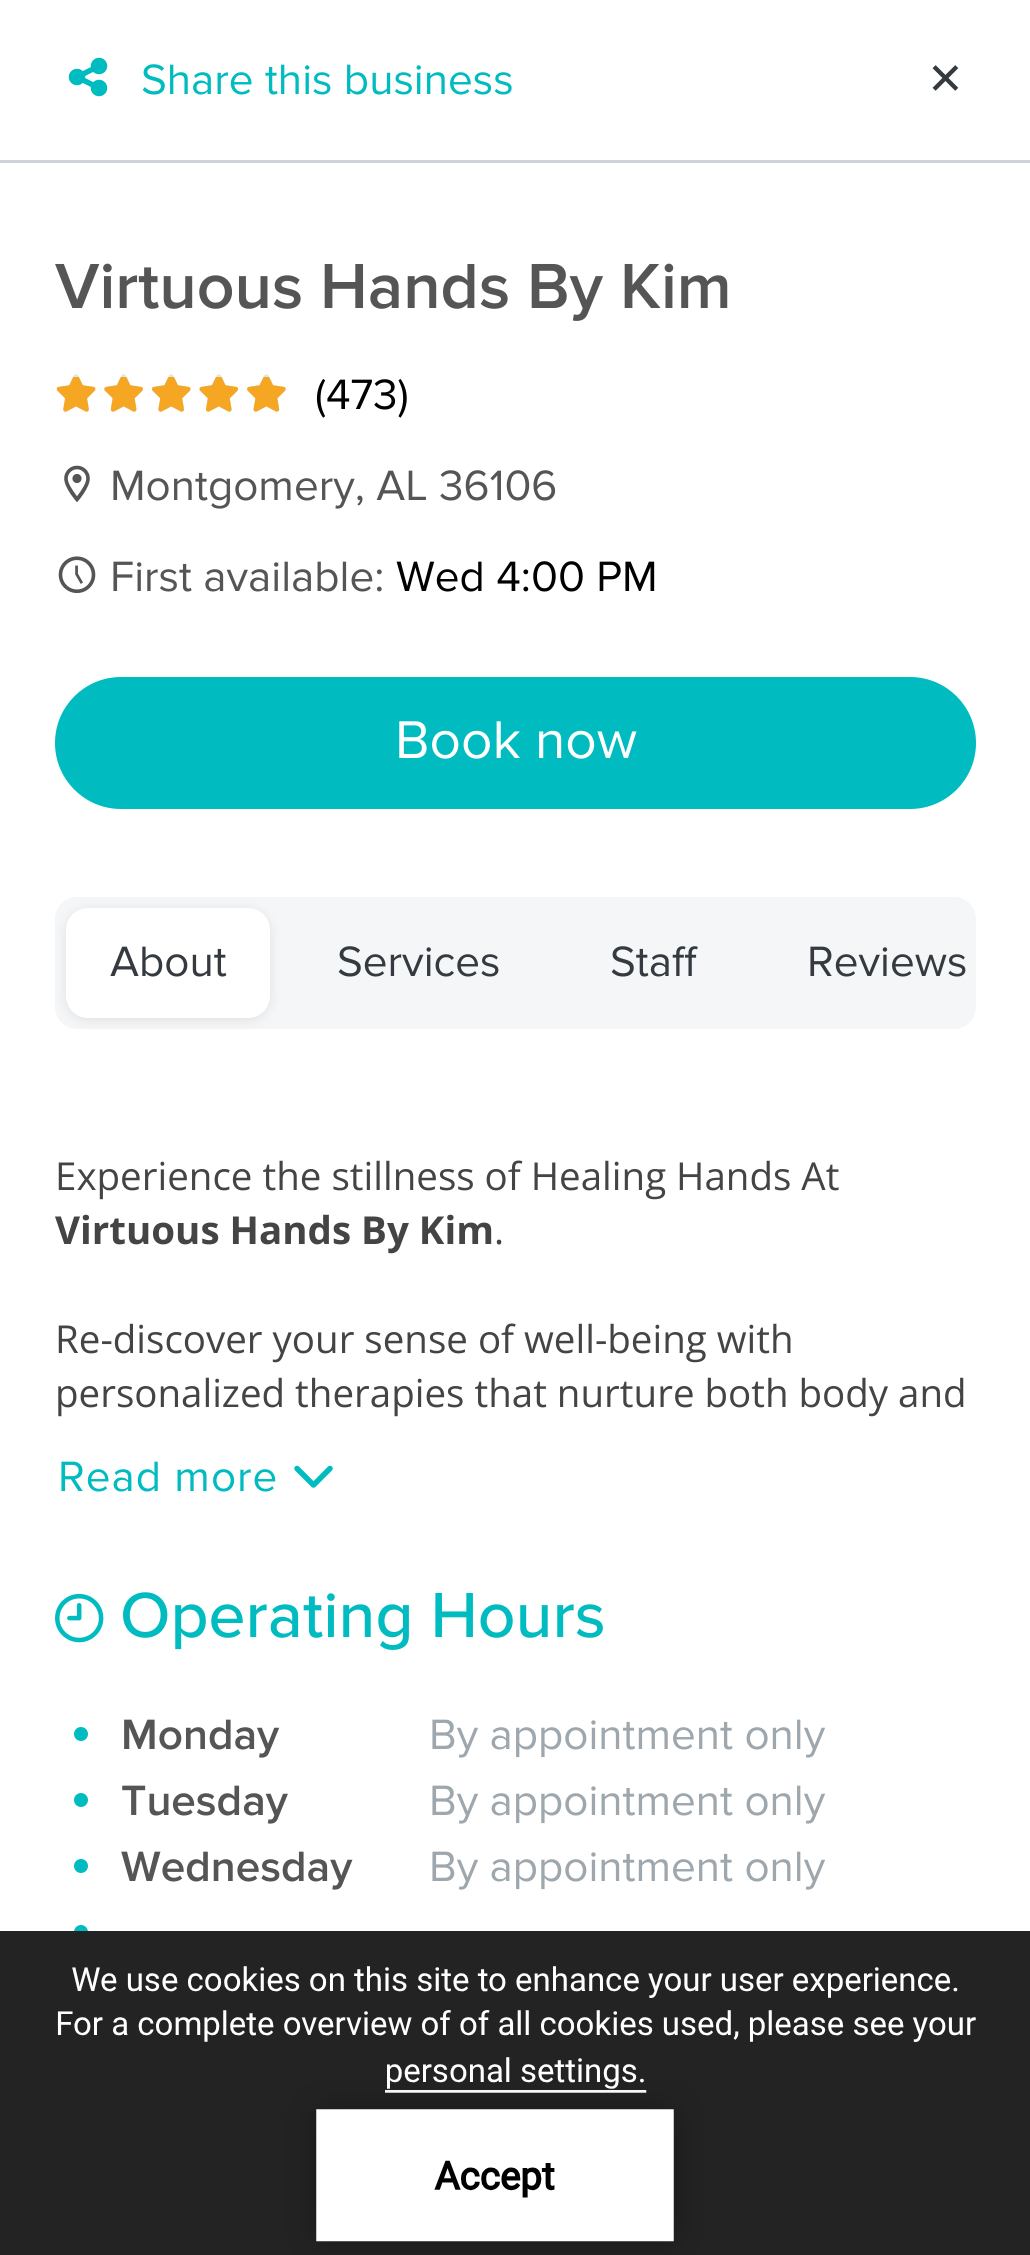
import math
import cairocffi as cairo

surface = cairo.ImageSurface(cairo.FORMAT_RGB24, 1030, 2255)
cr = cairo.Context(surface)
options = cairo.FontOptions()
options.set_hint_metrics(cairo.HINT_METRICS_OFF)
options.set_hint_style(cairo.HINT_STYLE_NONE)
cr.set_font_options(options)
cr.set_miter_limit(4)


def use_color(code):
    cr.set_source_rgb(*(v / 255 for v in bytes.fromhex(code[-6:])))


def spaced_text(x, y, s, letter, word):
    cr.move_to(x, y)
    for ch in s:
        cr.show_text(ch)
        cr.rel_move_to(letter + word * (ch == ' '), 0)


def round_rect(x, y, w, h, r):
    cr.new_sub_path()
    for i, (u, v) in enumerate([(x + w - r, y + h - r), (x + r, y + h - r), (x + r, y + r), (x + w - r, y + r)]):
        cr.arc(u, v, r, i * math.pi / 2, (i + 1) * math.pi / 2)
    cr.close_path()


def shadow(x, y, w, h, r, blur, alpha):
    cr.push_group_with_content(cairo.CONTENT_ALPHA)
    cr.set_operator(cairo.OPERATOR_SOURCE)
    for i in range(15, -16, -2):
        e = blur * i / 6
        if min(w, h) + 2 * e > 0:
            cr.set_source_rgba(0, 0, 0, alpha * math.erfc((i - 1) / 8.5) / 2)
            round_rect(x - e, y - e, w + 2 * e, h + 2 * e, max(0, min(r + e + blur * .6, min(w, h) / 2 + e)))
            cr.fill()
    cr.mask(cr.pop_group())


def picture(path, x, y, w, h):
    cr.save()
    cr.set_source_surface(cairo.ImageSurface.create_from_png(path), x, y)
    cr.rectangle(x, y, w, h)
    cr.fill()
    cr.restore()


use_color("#ffffff")
cr.paint()
use_color("#ced4da")
cr.rectangle(0, 160, 1030, 3)
cr.fill()
picture("img1.png", 68, 57, 40, 40)
cr.select_font_face("Proxima Nova")
cr.set_font_size(44)
use_color("#00bcc0")
cr.move_to(141, 94)
cr.show_text("Share this business")
cr.select_font_face("DejaVu Sans")
use_color("#343a40")
spaced_text(927, 94, "✕", 1, 0)
cr.select_font_face("Proxima Nova SemiBold")
cr.set_font_size(66)
use_color("#555555")
cr.move_to(55, 308)
cr.show_text("Virtuous Hands By Kim")
picture("img2.png", 56, 374, 230, 38)
picture("img3.png", 56, 377, 230, 35)
cr.select_font_face("Proxima Nova")
cr.set_font_size(44)
use_color("#000000")
cr.move_to(315, 409)
cr.show_text("(473)")
picture("img4.png", 64, 465, 26, 38)
use_color("#555555")
cr.move_to(110, 500)
cr.show_text("Montgomery, AL 36106")
picture("img5.png", 58, 556, 38, 37)
cr.move_to(110, 591)
cr.show_text("First available:")
use_color("#000000")
cr.move_to(396, 591)
cr.show_text("Wed 4:00 PM")
use_color("#00bcc0")
round_rect(56.5, 678.5, 918, 129, 64.5)
cr.fill_preserve()
cr.set_line_width(3)
cr.stroke()
cr.set_font_size(55)
use_color("#ffffff")
cr.move_to(395, 758)
cr.show_text("Book now")
use_color("#f5f6f7")
round_rect(55, 897, 921, 132, 22)
cr.fill()
use_color("#121212")
shadow(66, 910, 204, 110, 22, 5.5, 0.1)
use_color("#ffffff")
round_rect(66, 908, 204, 110, 22)
cr.fill()
cr.set_font_size(44)
use_color("#343a40")
cr.move_to(110, 976)
cr.show_text("About")
cr.move_to(337, 976)
cr.show_text("Services")
cr.move_to(610, 976)
cr.show_text("Staff")
cr.move_to(807, 976)
cr.show_text("Reviews")
cr.select_font_face("Open Sans")
cr.set_font_size(38.5)
use_color("#444444")
cr.move_to(55, 1190)
cr.show_text("Experience the stillness of Healing Hands At")
cr.select_font_face("Open Sans", cairo.FONT_SLANT_NORMAL, cairo.FONT_WEIGHT_BOLD)
cr.move_to(55, 1244)
cr.show_text("Virtuous Hands By Kim")
cr.select_font_face("Open Sans")
cr.move_to(494, 1244)
cr.show_text(".")
cr.move_to(55, 1353)
cr.show_text("Re-discover your sense of well-being with")
cr.move_to(55, 1407)
cr.show_text("personalized therapies that nurture both body and")
cr.select_font_face("Proxima Nova")
cr.set_font_size(44)
use_color("#00bcc0")
spaced_text(58, 1491, "Read more", 1, 0)
picture("img6.png", 294, 1465, 39, 23)
picture("img7.png", 55, 1593, 49, 50)
cr.select_font_face("Proxima Nova Medium")
cr.set_font_size(66)
cr.move_to(120, 1637)
cr.show_text("Operating Hours")
cr.new_path()
cr.arc(81, 1734, 7, 0, 2 * math.pi)
cr.fill()
cr.select_font_face("Proxima Nova SemiBold")
cr.set_font_size(44)
use_color("#555555")
cr.move_to(121, 1749)
cr.show_text("Monday")
cr.select_font_face("Proxima Nova")
use_color("#9da7ad")
cr.move_to(429, 1749)
cr.show_text("By appointment only")
use_color("#00bcc0")
cr.new_path()
cr.arc(81, 1800, 7, 0, 2 * math.pi)
cr.fill()
cr.select_font_face("Proxima Nova SemiBold")
use_color("#555555")
cr.move_to(121, 1815)
cr.show_text("Tuesday")
cr.select_font_face("Proxima Nova")
use_color("#9da7ad")
cr.move_to(429, 1815)
cr.show_text("By appointment only")
use_color("#00bcc0")
cr.new_path()
cr.arc(81, 1866, 7, 0, 2 * math.pi)
cr.fill()
cr.select_font_face("Proxima Nova SemiBold")
use_color("#555555")
cr.move_to(121, 1881)
cr.show_text("Wednesday")
cr.select_font_face("Proxima Nova")
use_color("#9da7ad")
cr.move_to(429, 1881)
cr.show_text("By appointment only")
use_color("#00bcc0")
cr.new_path()
cr.arc(81, 1932, 7, 0, 2 * math.pi)
cr.fill()
picture("img8.png", 0, 1931, 1030, 324)
surface.write_to_png("result.png")
